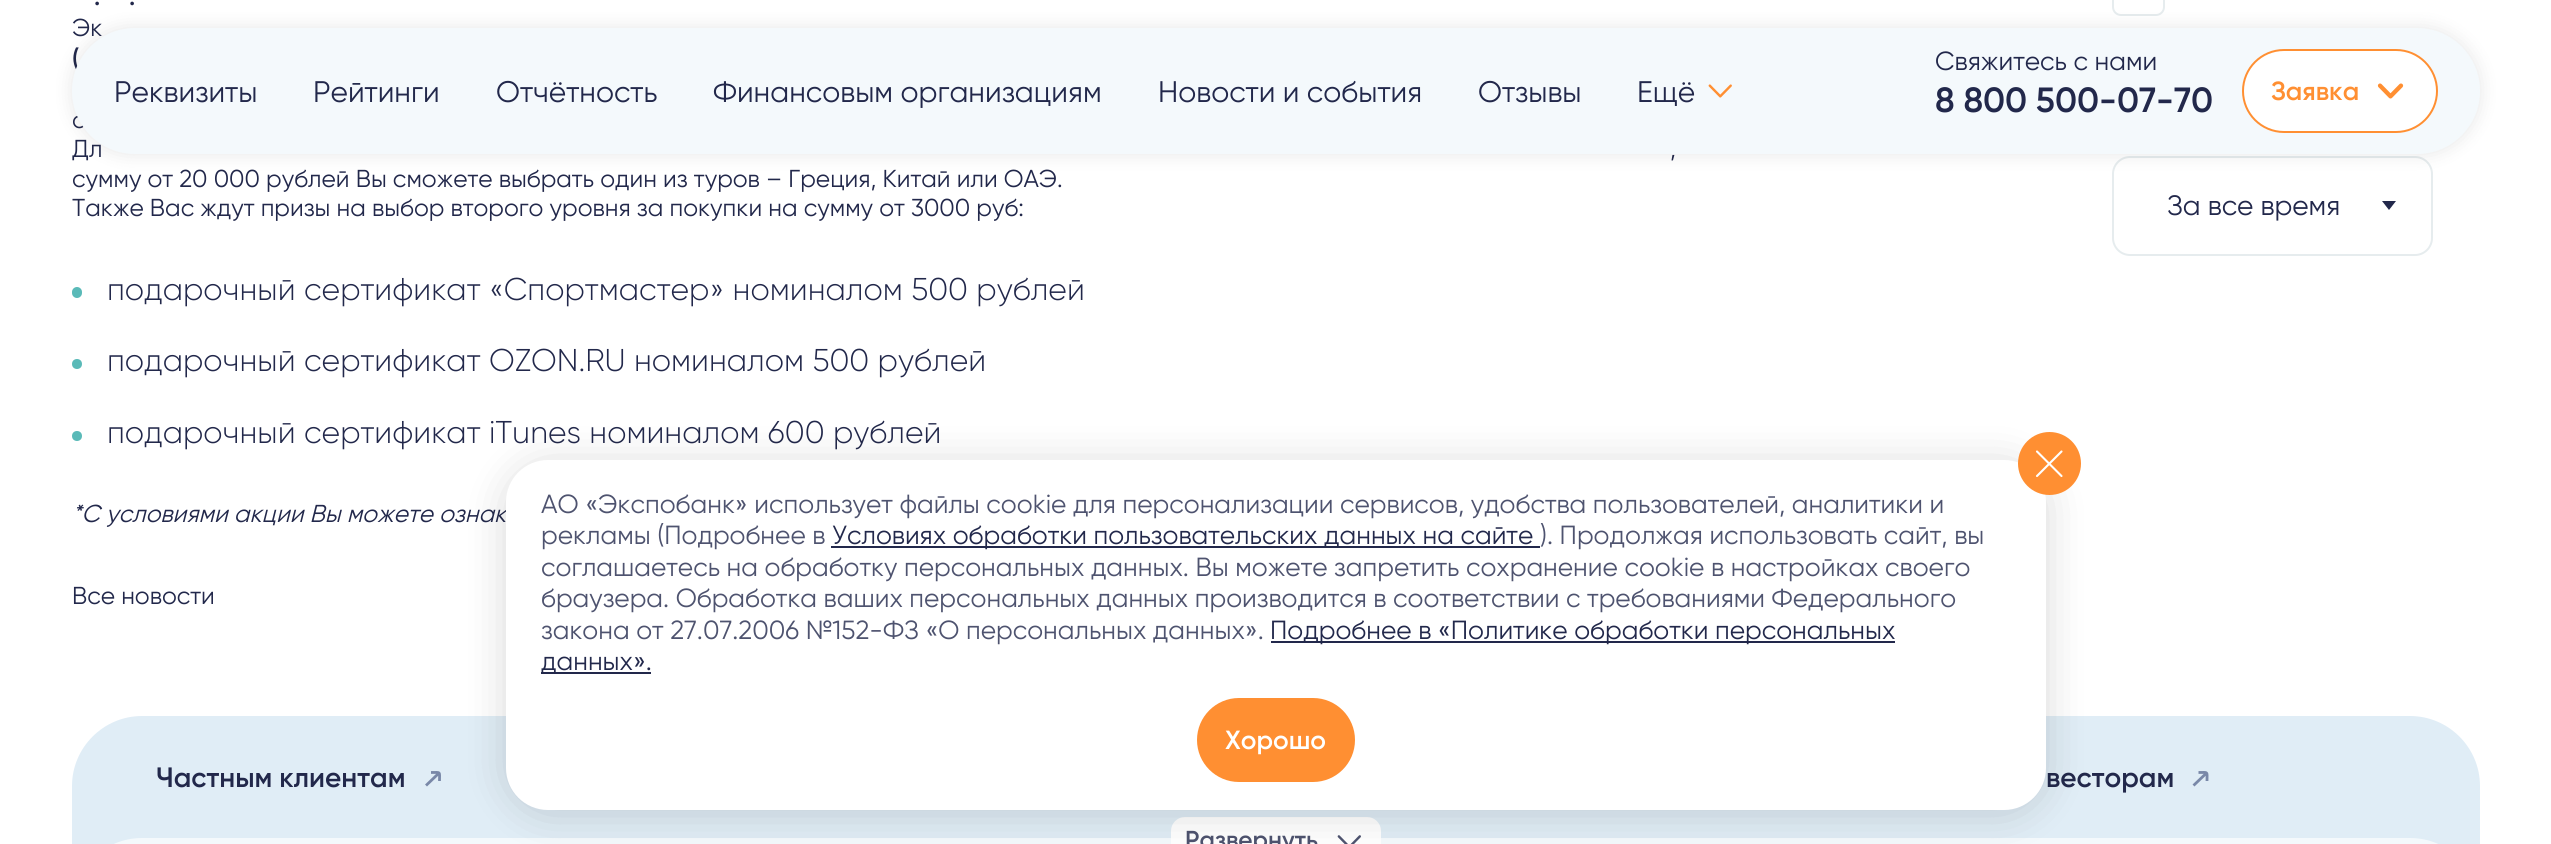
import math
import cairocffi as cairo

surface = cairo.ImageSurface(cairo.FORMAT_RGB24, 2551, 844)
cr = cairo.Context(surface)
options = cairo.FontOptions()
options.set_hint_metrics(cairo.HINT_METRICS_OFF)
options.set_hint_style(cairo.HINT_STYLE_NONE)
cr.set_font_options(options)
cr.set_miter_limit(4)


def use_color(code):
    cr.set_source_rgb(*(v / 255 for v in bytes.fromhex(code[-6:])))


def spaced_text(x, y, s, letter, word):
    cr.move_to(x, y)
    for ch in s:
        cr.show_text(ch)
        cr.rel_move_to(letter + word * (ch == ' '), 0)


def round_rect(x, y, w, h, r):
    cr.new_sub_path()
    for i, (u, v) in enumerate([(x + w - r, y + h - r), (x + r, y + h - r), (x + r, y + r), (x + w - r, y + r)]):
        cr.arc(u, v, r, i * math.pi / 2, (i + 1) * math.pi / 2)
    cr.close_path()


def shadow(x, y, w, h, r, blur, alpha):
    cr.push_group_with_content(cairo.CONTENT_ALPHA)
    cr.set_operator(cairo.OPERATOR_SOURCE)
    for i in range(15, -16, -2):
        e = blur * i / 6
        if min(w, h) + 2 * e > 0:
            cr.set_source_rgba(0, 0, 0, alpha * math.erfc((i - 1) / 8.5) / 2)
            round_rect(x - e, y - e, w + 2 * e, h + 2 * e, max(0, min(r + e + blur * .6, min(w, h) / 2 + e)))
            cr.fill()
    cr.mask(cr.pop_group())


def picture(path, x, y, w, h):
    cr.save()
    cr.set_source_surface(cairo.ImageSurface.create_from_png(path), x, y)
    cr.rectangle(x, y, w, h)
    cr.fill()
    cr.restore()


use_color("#ffffff")
cr.paint()
cr.select_font_face("Gilroy SemiBold")
cr.set_font_size(24.5)
use_color("#22284b")
cr.move_to(94, 5)
cr.show_text(".")
cr.move_to(129, 5)
cr.show_text(".")
cr.select_font_face("Gilroy")
spaced_text(72, 36, "Эк", 0, 4)
cr.select_font_face("Gilroy SemiBold")
cr.move_to(72, 67)
cr.show_text("(")
cr.select_font_face("Gilroy")
cr.move_to(72, 128)
cr.show_text("с")
spaced_text(72, 157, "Дл", 0, 1)
spaced_text(1670, 157, ",", 0, 1)
cr.move_to(72, 187)
cr.show_text("сумму от 20 000 рублей Вы сможете выбрать один из туров – Греция, Китай или ОАЭ.")
cr.move_to(72, 216)
cr.show_text("Также Вас ждут призы на выбор второго уровня за покупки на сумму от 3000 руб:")
use_color("#5abab8")
round_rect(72, 287, 10, 11, 5)
cr.fill()
cr.select_font_face("Gilroy Light")
cr.set_font_size(31.5)
use_color("#22284b")
cr.move_to(107, 300)
cr.show_text("подарочный сертификат «Спортмастер» номиналом 500 рублей")
use_color("#5abab8")
cr.new_path()
cr.arc(77, 364, 5, 0, 2 * math.pi)
cr.fill()
use_color("#22284b")
cr.move_to(107, 371)
cr.show_text("подарочный сертификат OZON.RU номиналом 500 рублей")
use_color("#5abab8")
cr.new_path()
cr.arc(77, 436, 5, 0, 2 * math.pi)
cr.fill()
use_color("#22284b")
cr.move_to(107, 443)
cr.show_text("подарочный сертификат iTunes номиналом 600 рублей")
cr.select_font_face("Gilroy", cairo.FONT_SLANT_ITALIC)
cr.set_font_size(24.5)
cr.move_to(72, 522)
cr.show_text("*С условиями акции Вы можете ознак")
cr.select_font_face("Gilroy")
cr.move_to(72, 604)
cr.show_text("Все новости")
round_rect(2113, -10, 51, 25, 8)
use_color("#e6ecee")
cr.stroke()
round_rect(2113, 157, 319, 98, 17)
cr.stroke()
cr.set_font_size(28)
use_color("#22284b")
cr.move_to(2167, 215)
cr.show_text("За все время")
cr.new_path()
cr.move_to(2382, 201)
cr.line_to(2396, 201)
cr.line_to(2389, 210)
cr.close_path()
cr.fill()
use_color("#000000")
shadow(72, 28, 2408, 126, 63, 9, 0.1)
use_color("#f4f9fc")
round_rect(72, 28, 2408, 126, 63)
cr.fill()
cr.set_font_size(29.75)
use_color("#22284b")
cr.move_to(114, 102)
cr.show_text("Реквизиты")
cr.move_to(313, 102)
cr.show_text("Рейтинги")
cr.move_to(496, 102)
cr.show_text("Отчётность")
cr.move_to(713, 102)
cr.show_text("Финансовым организациям")
cr.move_to(1158, 102)
cr.show_text("Новости и события")
cr.move_to(1478, 102)
cr.show_text("Отзывы")
cr.move_to(1637, 102)
cr.show_text("Ещё")
picture("img1.png", 1708, 84, 24, 14)
cr.set_font_size(26.25)
cr.move_to(1935, 70)
cr.show_text("Свяжитесь с нами")
cr.select_font_face("Gilroy SemiBold")
cr.set_font_size(35)
cr.move_to(1935, 112)
cr.show_text("8 800 500-07-70")
use_color("#ffffff")
round_rect(2243, 50, 194, 82, 41)
cr.fill_preserve()
use_color("#ff8f32")
cr.stroke()
cr.set_font_size(26.25)
cr.move_to(2271, 100)
cr.show_text("Заявка")
picture("img2.png", 2377, 83, 27, 16)
use_color("#e0edf6")
cr.new_path()
cr.move_to(142, 716)
cr.line_to(2410, 716)
cr.curve_to(2448.5, 716, 2480, 747.5, 2480, 786)
cr.line_to(2480, 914)
cr.line_to(72, 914)
cr.line_to(72, 786)
cr.curve_to(72, 747.5, 103.5, 716, 142, 716)
cr.close_path()
cr.fill()
cr.set_font_size(28)
use_color("#22284b")
cr.move_to(156, 787)
cr.show_text("Частным клиентам")
cr.new_path()
cr.move_to(431, 772.5)
cr.curve_to(441, 772.5, 439.5, 771, 439.5, 781)
cr.move_to(426, 785.5)
cr.line_to(438, 774)
use_color("#7988a8")
cr.set_line_width(2.8)
cr.stroke()
use_color("#22284b")
cr.move_to(2046, 787)
cr.show_text("весторам")
cr.new_path()
cr.move_to(2198.5, 772.5)
cr.curve_to(2208.5, 772.5, 2207, 771, 2207, 781)
cr.move_to(2193.5, 785.5)
cr.line_to(2205.5, 774)
use_color("#7988a8")
cr.stroke()
use_color("#f4f9fc")
cr.new_path()
cr.move_to(142, 838)
cr.line_to(2410, 838)
cr.curve_to(2448.5, 838, 2480, 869.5, 2480, 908)
cr.line_to(2480, 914)
cr.line_to(72, 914)
cr.line_to(72, 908)
cr.curve_to(72, 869.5, 103.5, 838, 142, 838)
cr.close_path()
cr.fill()
use_color("#ffffff")
round_rect(1171, 817, 210, 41, 14)
cr.fill()
cr.set_font_size(24.5)
use_color("#4e536f")
cr.move_to(1185, 848)
cr.show_text("Развернуть")
picture("img3.png", 1337, 835, 24, 9)
use_color("#000000")
shadow(506, 464, 1540, 350, 42, 21, 0.15)
use_color("#ffffff")
round_rect(506, 460, 1540, 350, 42)
cr.fill()
use_color("#ff8f32")
cr.arc(2049.5, 463.5, 31.5, 0, 2 * math.pi)
cr.fill()
cr.new_path()
cr.move_to(2061.5, 476)
cr.line_to(2037, 451.5)
cr.move_to(2037, 476)
cr.line_to(2061.5, 451.5)
use_color("#ffffff")
cr.set_line_width(2.1)
cr.set_line_cap(cairo.LINE_CAP_ROUND)
cr.stroke()
cr.select_font_face("Gilroy")
cr.set_font_size(26.25)
use_color("#4e536f")
cr.move_to(541, 513)
cr.show_text("АО «Экспобанк» использует файлы cookie для персонализации сервисов, удобства пользователей, аналитики и")
cr.move_to(541, 544)
cr.show_text("рекламы (Подробнее в")
use_color("#22284b")
cr.rectangle(831, 546, 709, 2)
cr.fill()
cr.move_to(832, 544)
cr.show_text("Условиях обработки пользовательских данных на сайте")
use_color("#4e536f")
cr.move_to(1540, 544)
cr.show_text("). Продолжая использовать сайт, вы")
cr.move_to(541, 576)
cr.show_text("соглашаетесь на обработку персональных данных. Вы можете запретить сохранение cookie в настройках своего")
cr.move_to(541, 607)
cr.show_text("браузера. Обработка ваших персональных данных производится в соответствии с требованиями Федерального")
cr.move_to(541, 639)
cr.show_text("закона от 27.07.2006 №152-ФЗ «О персональных данных».")
use_color("#22284b")
cr.rectangle(1271, 641, 624, 2)
cr.fill()
cr.move_to(1270, 639)
cr.show_text("Подробнее в «Политике обработки персональных")
cr.rectangle(541, 672, 110, 2)
cr.fill()
cr.move_to(541, 670)
cr.show_text("данных».")
use_color("#ff8f32")
round_rect(1197, 698, 158, 84, 42)
cr.fill()
cr.select_font_face("Gilroy SemiBold")
use_color("#ffffff")
cr.move_to(1225, 749)
cr.show_text("Хорошо")
surface.write_to_png("result.png")
